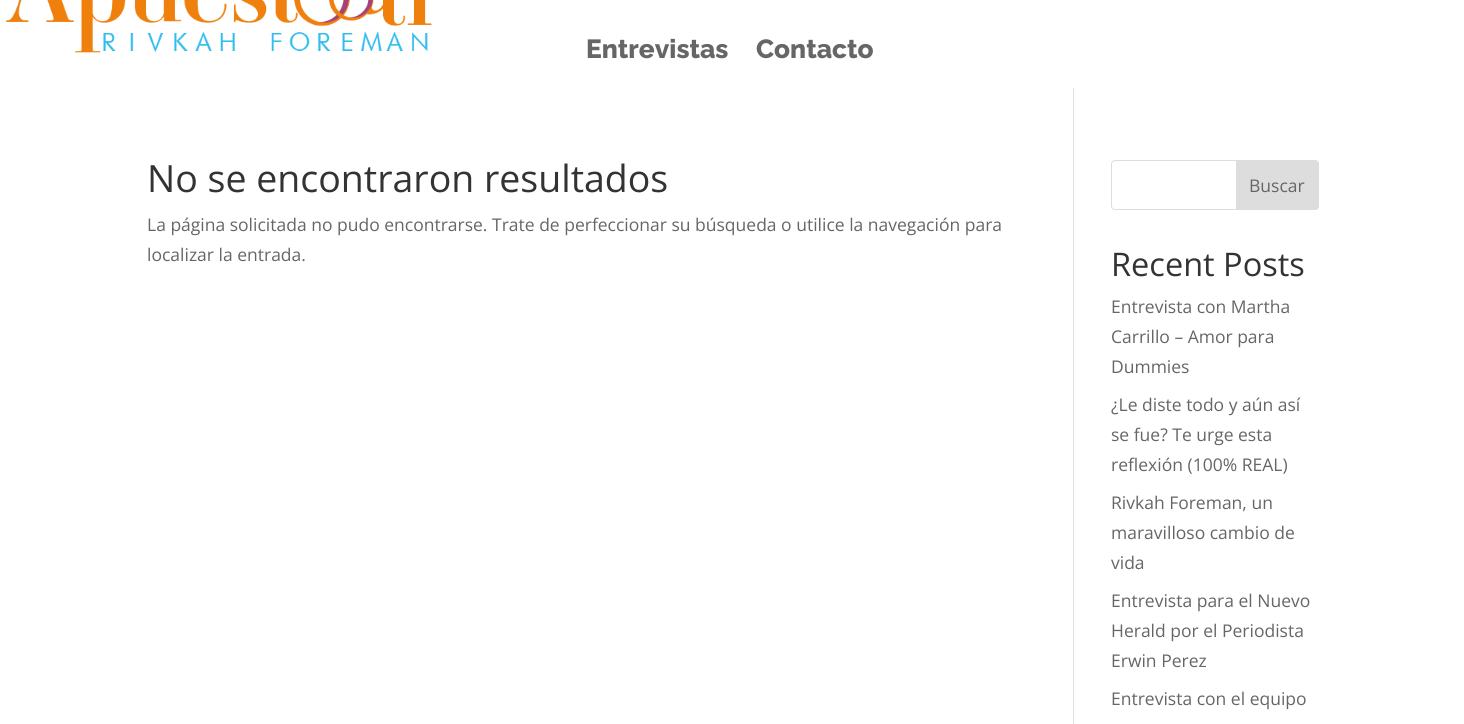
import math
import cairocffi as cairo

surface = cairo.ImageSurface(cairo.FORMAT_RGB24, 1464, 724)
cr = cairo.Context(surface)
options = cairo.FontOptions()
options.set_hint_metrics(cairo.HINT_METRICS_OFF)
options.set_hint_style(cairo.HINT_STYLE_NONE)
cr.set_font_options(options)
cr.set_miter_limit(4)


def use_color(code):
    cr.set_source_rgb(*(v / 255 for v in bytes.fromhex(code[-6:])))


def round_rect(x, y, w, h, r):
    cr.new_sub_path()
    for i, (u, v) in enumerate([(x + w - r, y + h - r), (x + r, y + h - r), (x + r, y + r), (x + w - r, y + r)]):
        cr.arc(u, v, r, i * math.pi / 2, (i + 1) * math.pi / 2)
    cr.close_path()


def picture(path, x, y, w, h):
    cr.save()
    cr.set_source_surface(cairo.ImageSurface.create_from_png(path), x, y)
    cr.rectangle(x, y, w, h)
    cr.fill()
    cr.restore()


use_color("#ffffff")
cr.paint()
picture("img1.png", 6, 0, 426, 53)
cr.select_font_face("Raleway ExtraBold")
cr.set_font_size(26.25)
use_color("#666666")
cr.move_to(586, 58)
cr.show_text("Entrevistas")
cr.move_to(756, 58)
cr.show_text("Contacto")
use_color("#e2e2e2")
cr.rectangle(1073, 88, 1, 636)
cr.fill()
cr.select_font_face("Open Sans")
cr.set_font_size(37.5)
use_color("#333333")
cr.move_to(147, 192)
cr.show_text("No se encontraron resultados")
cr.set_font_size(17.5)
use_color("#666666")
cr.move_to(147, 231)
cr.show_text("La página solicitada no pudo encontrarse. Trate de perfeccionar su búsqueda o utilice la navegación para")
cr.move_to(147, 261)
cr.show_text("localizar la entrada.")
round_rect(1111.5, 160.5, 207, 49, 3.5)
use_color("#dddddd")
cr.set_line_width(1)
cr.stroke()
cr.new_path()
cr.move_to(1236.5, 160.5)
cr.line_to(1315, 160.5)
cr.curve_to(1317, 160.5, 1318.5, 162, 1318.5, 164)
cr.line_to(1318.5, 206)
cr.curve_to(1318.5, 208, 1317, 209.5, 1315, 209.5)
cr.line_to(1236.5, 209.5)
cr.close_path()
cr.fill_preserve()
cr.stroke()
use_color("#666666")
cr.move_to(1249, 192)
cr.show_text("Buscar")
cr.set_font_size(32.5)
use_color("#333333")
cr.move_to(1111, 276)
cr.show_text("Recent Posts")
cr.set_font_size(17.5)
use_color("#666666")
cr.move_to(1111, 313)
cr.show_text("Entrevista con Martha")
cr.move_to(1111, 343)
cr.show_text("Carrillo – Amor para")
cr.move_to(1111, 373)
cr.show_text("Dummies")
cr.move_to(1111, 411)
cr.show_text("¿Le diste todo y aún así")
cr.move_to(1111, 441)
cr.show_text("se fue? Te urge esta")
cr.move_to(1111, 471)
cr.show_text("reflexión (100% REAL)")
cr.move_to(1111, 509)
cr.show_text("Rivkah Foreman, un")
cr.move_to(1111, 539)
cr.show_text("maravilloso cambio de")
cr.move_to(1111, 569)
cr.show_text("vida")
cr.move_to(1111, 607)
cr.show_text("Entrevista para el Nuevo")
cr.move_to(1111, 637)
cr.show_text("Herald por el Periodista")
cr.move_to(1111, 667)
cr.show_text("Erwin Perez")
cr.move_to(1111, 705)
cr.show_text("Entrevista con el equipo")
surface.write_to_png("result.png")
